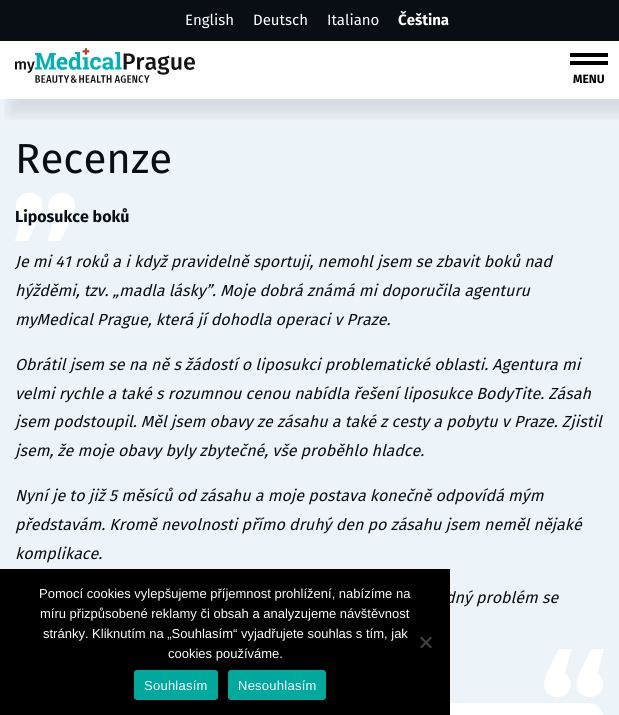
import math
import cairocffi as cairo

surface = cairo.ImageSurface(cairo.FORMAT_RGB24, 619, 715)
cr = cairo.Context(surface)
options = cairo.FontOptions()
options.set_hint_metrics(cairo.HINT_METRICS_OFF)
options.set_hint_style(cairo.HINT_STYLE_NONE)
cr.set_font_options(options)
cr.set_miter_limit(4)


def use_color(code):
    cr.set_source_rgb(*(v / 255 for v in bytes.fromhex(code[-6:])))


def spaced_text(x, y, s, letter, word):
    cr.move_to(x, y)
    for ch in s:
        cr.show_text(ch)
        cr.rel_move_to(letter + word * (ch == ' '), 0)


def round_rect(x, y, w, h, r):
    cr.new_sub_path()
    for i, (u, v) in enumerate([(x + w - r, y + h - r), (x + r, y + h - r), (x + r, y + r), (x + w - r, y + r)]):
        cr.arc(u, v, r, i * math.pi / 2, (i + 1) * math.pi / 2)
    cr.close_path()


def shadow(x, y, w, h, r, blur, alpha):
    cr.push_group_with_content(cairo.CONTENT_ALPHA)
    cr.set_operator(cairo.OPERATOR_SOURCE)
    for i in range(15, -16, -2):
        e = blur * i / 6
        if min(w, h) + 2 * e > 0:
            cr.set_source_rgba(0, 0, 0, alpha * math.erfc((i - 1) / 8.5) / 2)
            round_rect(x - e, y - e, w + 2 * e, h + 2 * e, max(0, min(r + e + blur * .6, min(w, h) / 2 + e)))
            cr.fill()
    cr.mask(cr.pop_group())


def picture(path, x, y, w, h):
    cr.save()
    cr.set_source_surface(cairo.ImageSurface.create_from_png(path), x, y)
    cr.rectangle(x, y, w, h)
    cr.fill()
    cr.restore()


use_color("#ffffff")
cr.paint()
use_color("#ecf3f9")
cr.rectangle(0, 99, 619, 616)
cr.fill()
cr.save()
cr.rectangle(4, 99, 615, 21)
cr.clip()
use_color("#000000")
shadow(10, 15, 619, 99, 0, 7.5, 0.1)
cr.restore()
use_color("#090e15")
cr.rectangle(0, 0, 619, 41)
cr.fill()
cr.select_font_face("Fira Sans")
cr.set_font_size(15)
use_color("#ffffff")
cr.move_to(185, 25)
cr.show_text("English")
cr.move_to(253, 25)
cr.show_text("Deutsch")
cr.move_to(327, 25)
cr.show_text("Italiano")
cr.select_font_face("Fira Sans", cairo.FONT_SLANT_NORMAL, cairo.FONT_WEIGHT_BOLD)
cr.move_to(398, 25)
cr.show_text("Čeština")
picture("img1.png", 15, 48, 180, 35)
use_color("#000000")
cr.rectangle(570, 53, 38, 4)
cr.fill()
cr.rectangle(570, 61, 38, 4)
cr.fill()
cr.set_font_size(12)
cr.move_to(573, 83)
cr.show_text("MENU")
cr.select_font_face("Fira Sans")
cr.set_font_size(42)
use_color("#090e15")
cr.move_to(15, 173)
cr.show_text("Recenze")
picture("img2.png", 15, 193, 60, 48)
cr.select_font_face("Fira Sans", cairo.FONT_SLANT_NORMAL, cairo.FONT_WEIGHT_BOLD)
cr.set_font_size(16)
cr.move_to(15, 222)
cr.show_text("Liposukce boků")
cr.select_font_face("Fira Sans", cairo.FONT_SLANT_ITALIC)
cr.move_to(15, 267)
cr.show_text("Je mi 41 roků a i když pravidelně sportuji, nemohl jsem se zbavit boků nad")
cr.move_to(15, 296)
cr.show_text("hýžděmi, tzv. „madla lásky”. Moje dobrá známá mi doporučila agenturu")
cr.move_to(15, 325)
cr.show_text("myMedical Prague, která jí dohodla operaci v Praze.")
cr.move_to(15, 370)
cr.show_text("Obrátil jsem se na ně s žádostí o liposukci problematické oblasti. Agentura mi")
cr.move_to(15, 399)
cr.show_text("velmi rychle a také s rozumnou cenou nabídla řešení liposukce BodyTite. Zásah")
cr.move_to(15, 427)
cr.show_text("jsem podstoupil. Měl jsem obavy ze zásahu a také z cesty a pobytu v Praze. Zjistil")
cr.move_to(15, 456)
cr.show_text("jsem, že moje obavy byly zbytečné, vše proběhlo hladce.")
cr.move_to(15, 501)
cr.show_text("Nyní je to již 5 měsíců od zásahu a moje postava konečně odpovídá mým")
cr.move_to(15, 530)
cr.show_text("představám. Kromě nevolnosti přímo druhý den po zásahu jsem neměl nějaké")
cr.move_to(15, 559)
cr.show_text("komplikace.")
cr.move_to(445, 603)
cr.show_text("dný problém se")
picture("img3.png", 544, 649, 60, 48)
use_color("#ffffff")
round_rect(15, 703, 589, 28, 16)
cr.fill()
use_color("#000000")
cr.rectangle(0, 569, 450, 146)
cr.fill()
cr.select_font_face("Liberation Sans")
cr.set_font_size(13)
use_color("#ffffff")
cr.move_to(39, 598)
cr.show_text("Pomocí cookies vylepšujeme příjemnost prohlížení, nabízíme na")
cr.move_to(40, 618)
cr.show_text("míru přizpůsobené reklamy či obsah a analyzujeme návštěvnost")
cr.move_to(43, 638)
cr.show_text("stránky. Kliknutím na „Souhlasím“ vyjadřujete souhlas s tím, jak")
cr.move_to(168, 658)
cr.show_text("cookies používáme.")
use_color("#404040")
cr.new_path()
cr.move_to(430.5, 636.5)
cr.line_to(432, 638)
cr.line_to(421.5, 648.5)
cr.line_to(420, 647)
cr.close_path()
cr.fill()
cr.new_path()
cr.move_to(420, 638)
cr.line_to(421.5, 636.5)
cr.line_to(432, 647)
cr.line_to(430.5, 648.5)
cr.close_path()
cr.fill()
use_color("#00a99d")
round_rect(134, 670, 84, 30, 3)
cr.fill()
use_color("#ffffff")
spaced_text(144, 690, "Souhlasím", 0.25, 0)
use_color("#00a99d")
round_rect(228, 670, 98, 30, 3)
cr.fill()
use_color("#ffffff")
spaced_text(238, 690, "Nesouhlasím", 0.25, 0)
surface.write_to_png("result.png")
